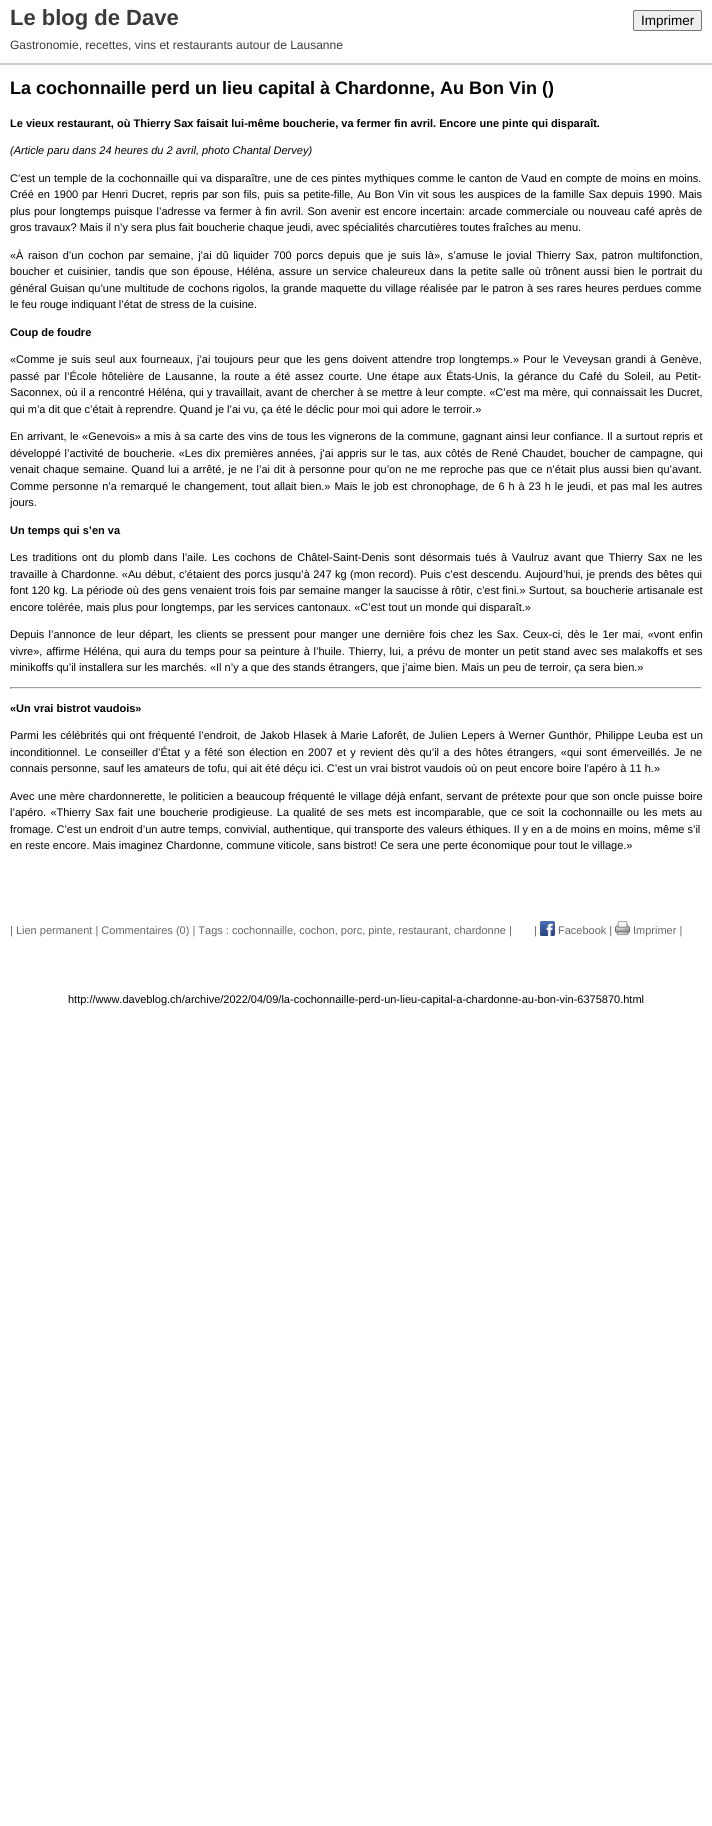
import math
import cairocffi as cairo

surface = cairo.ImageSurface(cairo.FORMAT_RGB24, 712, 1826)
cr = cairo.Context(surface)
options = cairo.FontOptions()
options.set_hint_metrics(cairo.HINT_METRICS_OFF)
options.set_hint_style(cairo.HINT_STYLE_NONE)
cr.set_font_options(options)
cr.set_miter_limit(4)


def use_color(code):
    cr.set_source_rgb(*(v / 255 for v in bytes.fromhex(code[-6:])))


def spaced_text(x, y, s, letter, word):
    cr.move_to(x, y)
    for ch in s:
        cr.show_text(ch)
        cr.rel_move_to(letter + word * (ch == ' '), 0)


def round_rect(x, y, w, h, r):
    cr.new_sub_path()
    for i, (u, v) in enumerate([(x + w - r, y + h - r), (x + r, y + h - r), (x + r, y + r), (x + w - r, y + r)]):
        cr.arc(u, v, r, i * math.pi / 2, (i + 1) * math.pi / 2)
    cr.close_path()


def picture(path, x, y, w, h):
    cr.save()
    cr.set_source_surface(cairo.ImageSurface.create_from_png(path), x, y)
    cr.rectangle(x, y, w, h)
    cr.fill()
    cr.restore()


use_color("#ffffff")
cr.paint()
use_color("#cccccc")
cr.rectangle(0, 63, 712, 2)
cr.fill()
cr.select_font_face("Liberation Sans", cairo.FONT_SLANT_NORMAL, cairo.FONT_WEIGHT_BOLD)
cr.set_font_size(22)
use_color("#3a3a3a")
cr.move_to(10, 25)
cr.show_text("Le blog de Dave")
use_color("#efefef")
round_rect(633.5, 10.5, 68, 20, 1.5)
cr.fill_preserve()
use_color("#767676")
cr.set_line_width(1)
cr.stroke()
cr.select_font_face("Liberation Sans")
cr.set_font_size(13.5)
use_color("#000000")
cr.move_to(641, 25)
cr.show_text("Imprimer")
cr.set_font_size(12)
use_color("#3a3a3a")
cr.move_to(10, 49)
cr.show_text("Gastronomie, recettes, vins et restaurants autour de Lausanne")
cr.select_font_face("Liberation Sans", cairo.FONT_SLANT_NORMAL, cairo.FONT_WEIGHT_BOLD)
cr.set_font_size(18)
use_color("#000000")
cr.move_to(10, 94)
cr.show_text("La cochonnaille perd un lieu capital à Chardonne, Au Bon Vin ()")
cr.set_font_size(11)
cr.move_to(10, 127)
cr.show_text("Le vieux restaurant, où Thierry Sax faisait lui-même boucherie, va fermer fin avril. Encore une pinte qui disparaît.")
cr.select_font_face("Liberation Sans", cairo.FONT_SLANT_ITALIC)
cr.move_to(10, 154)
cr.show_text("(Article paru dans 24 heures du 2 avril, photo Chantal Dervey)")
cr.select_font_face("Liberation Sans")
spaced_text(10, 182, "C’est un temple de la cochonnaille qui va disparaître, une de ces pintes mythiques comme le canton de Vaud en compte de moins en moins.", 0, 0.3)
spaced_text(10, 198, "Créé en 1900 par Henri Ducret, repris par son fils, puis sa petite-fille, Au Bon Vin vit sous les auspices de la famille Sax depuis 1990. Mais", 0, 0.75)
spaced_text(10, 215, "plus pour longtemps puisque l’adresse va fermer à fin avril. Son avenir est encore incertain: arcade commerciale ou nouveau café après de", 0, 0.7)
cr.move_to(10, 231)
cr.show_text("gros travaux? Mais il n’y sera plus fait boucherie chaque jeudi, avec spécialités charcutières toutes fraîches au menu.")
spaced_text(10, 259, "«À raison d’un cochon par semaine, j’ai dû liquider 700 porcs depuis que je suis là», s’amuse le jovial Thierry Sax, patron multifonction,", 0, 1.6)
spaced_text(10, 275, "boucher et cuisinier, tandis que son épouse, Héléna, assure un service chaleureux dans la petite salle où trônent aussi bien le portrait du", 0, 1.2)
spaced_text(10, 292, "général Guisan qu’une multitude de cochons rigolos, la grande maquette du village réalisée par le patron à ses rares heures perdues comme", 0, 0.25)
cr.move_to(10, 308)
cr.show_text("le feu rouge indiquant l’état de stress de la cuisine.")
cr.select_font_face("Liberation Sans", cairo.FONT_SLANT_NORMAL, cairo.FONT_WEIGHT_BOLD)
cr.move_to(10, 336)
cr.show_text("Coup de foudre")
cr.select_font_face("Liberation Sans")
spaced_text(10, 363, "«Comme je suis seul aux fourneaux, j’ai toujours peur que les gens doivent attendre trop longtemps.» Pour le Veveysan grandi à Genève,", 0, 1)
spaced_text(10, 380, "passé par l’École hôtelière de Lausanne, la route a été assez courte. Une étape aux États-Unis, la gérance du Café du Soleil, au Petit-", 0, 1.6)
spaced_text(10, 396, "Saconnex, où il a rencontré Héléna, qui y travaillait, avant de chercher à se mettre à leur compte. «C’est ma mère, qui connaissait les Ducret,", 0, 0.2)
cr.move_to(10, 413)
cr.show_text("qui m’a dit que c’était à reprendre. Quand je l’ai vu, ça été le déclic pour moi qui adore le terroir.»")
spaced_text(10, 440, "En arrivant, le «Genevois» a mis à sa carte des vins de tous les vignerons de la commune, gagnant ainsi leur confiance. Il a surtout repris et", 0, 0.4)
spaced_text(10, 457, "développé l’activité de boucherie. «Les dix premières années, j’ai appris sur le tas, aux côtés de René Chaudet, boucher de campagne, qui", 0, 0.75)
spaced_text(10, 473, "venait chaque semaine. Quand lui a arrêté, je ne l’ai dit à personne pour qu’on ne me reproche pas que ce n’était plus aussi bien qu’avant.", 0, 0.7)
spaced_text(10, 490, "Comme personne n’a remarqué le changement, tout allait bien.» Mais le job est chronophage, de 6 h à 23 h le jeudi, et pas mal les autres", 0, 0.85)
cr.move_to(10, 506)
cr.show_text("jours.")
cr.select_font_face("Liberation Sans", cairo.FONT_SLANT_NORMAL, cairo.FONT_WEIGHT_BOLD)
cr.move_to(10, 534)
cr.show_text("Un temps qui s’en va")
cr.select_font_face("Liberation Sans")
spaced_text(10, 561, "Les traditions ont du plomb dans l’aile. Les cochons de Châtel-Saint-Denis sont désormais tués à Vaulruz avant que Thierry Sax ne les", 0, 1.7)
spaced_text(10, 578, "travaille à Chardonne. «Au début, c’étaient des porcs jusqu’à 247 kg (mon record). Puis c’est descendu. Aujourd’hui, je prends des bêtes qui", 0, 0.4)
spaced_text(10, 594, "font 120 kg. La période où des gens venaient trois fois par semaine manger la saucisse à rôtir, c’est fini.» Surtout, sa boucherie artisanale est", 0, 0.2)
cr.move_to(10, 611)
cr.show_text("encore tolérée, mais plus pour longtemps, par les services cantonaux. «C’est tout un monde qui disparaît.»")
spaced_text(10, 638, "Depuis l’annonce de leur départ, les clients se pressent pour manger une dernière fois chez les Sax. Ceux-ci, dès le 1er mai, «vont enfin", 0, 1.25)
spaced_text(10, 655, "vivre», affirme Héléna, qui aura du temps pour sa peinture à l’huile. Thierry, lui, a prévu de monter un petit stand avec ses malakoffs et ses", 0, 0.7)
cr.move_to(10, 671)
cr.show_text("minikoffs qu’il installera sur les marchés. «Il n’y a que des stands étrangers, que j’aime bien. Mais un peu de terroir, ça sera bien.»")
use_color("#9f9f9f")
cr.rectangle(10, 687, 692, 1)
cr.fill()
use_color("#eeeeee")
cr.rectangle(701, 687, 1, 2)
cr.fill()
cr.rectangle(10, 688, 692, 1)
cr.fill()
use_color("#9f9f9f")
cr.rectangle(10, 687, 1, 2)
cr.fill()
cr.select_font_face("Liberation Sans", cairo.FONT_SLANT_NORMAL, cairo.FONT_WEIGHT_BOLD)
use_color("#000000")
cr.move_to(10, 712)
cr.show_text("«Un vrai bistrot vaudois»")
cr.select_font_face("Liberation Sans")
spaced_text(10, 739, "Parmi les célébrités qui ont fréquenté l’endroit, de Jakob Hlasek à Marie Laforêt, de Julien Lepers à Werner Gunthör, Philippe Leuba est un", 0, 0.7)
spaced_text(10, 756, "inconditionnel. Le conseiller d’État y a fêté son élection en 2007 et y revient dès qu’il a des hôtes étrangers, «qui sont émerveillés. Je ne", 0, 1.25)
cr.move_to(10, 772)
cr.show_text("connais personne, sauf les amateurs de tofu, qui ait été déçu ici. C’est un vrai bistrot vaudois où on peut encore boire l’apéro à 11 h.»")
spaced_text(10, 800, "Avec une mère chardonnerette, le politicien a beaucoup fréquenté le village déjà enfant, servant de prétexte pour que son oncle puisse boire", 0, 0.4)
spaced_text(10, 816, "l’apéro. «Thierry Sax fait une boucherie prodigieuse. La qualité de ses mets est incomparable, que ce soit la cochonnaille ou les mets au", 0, 1.25)
cr.move_to(10, 833)
cr.show_text("fromage. C’est un endroit d’un autre temps, convivial, authentique, qui transporte des valeurs éthiques. Il y en a de moins en moins, même s’il")
cr.move_to(10, 849)
cr.show_text("en reste encore. Mais imaginez Chardonne, commune viticole, sans bistrot! Ce sera une perte économique pour tout le village.»")
use_color("#666666")
cr.move_to(10, 934)
cr.show_text("| Lien permanent | Commentaires (0) | Tags : cochonnaille, cochon, porc, pinte, restaurant, chardonne |")
cr.move_to(534, 934)
cr.show_text("|")
picture("img1.png", 540, 921, 15, 15)
cr.move_to(558, 934)
cr.show_text("Facebook |")
picture("img2.png", 615, 921, 15, 15)
cr.move_to(633, 934)
cr.show_text("Imprimer |")
use_color("#000000")
cr.move_to(68, 1003)
cr.show_text("http://www.daveblog.ch/archive/2022/04/09/la-cochonnaille-perd-un-lieu-capital-a-chardonne-au-bon-vin-6375870.html")
surface.write_to_png("result.png")
